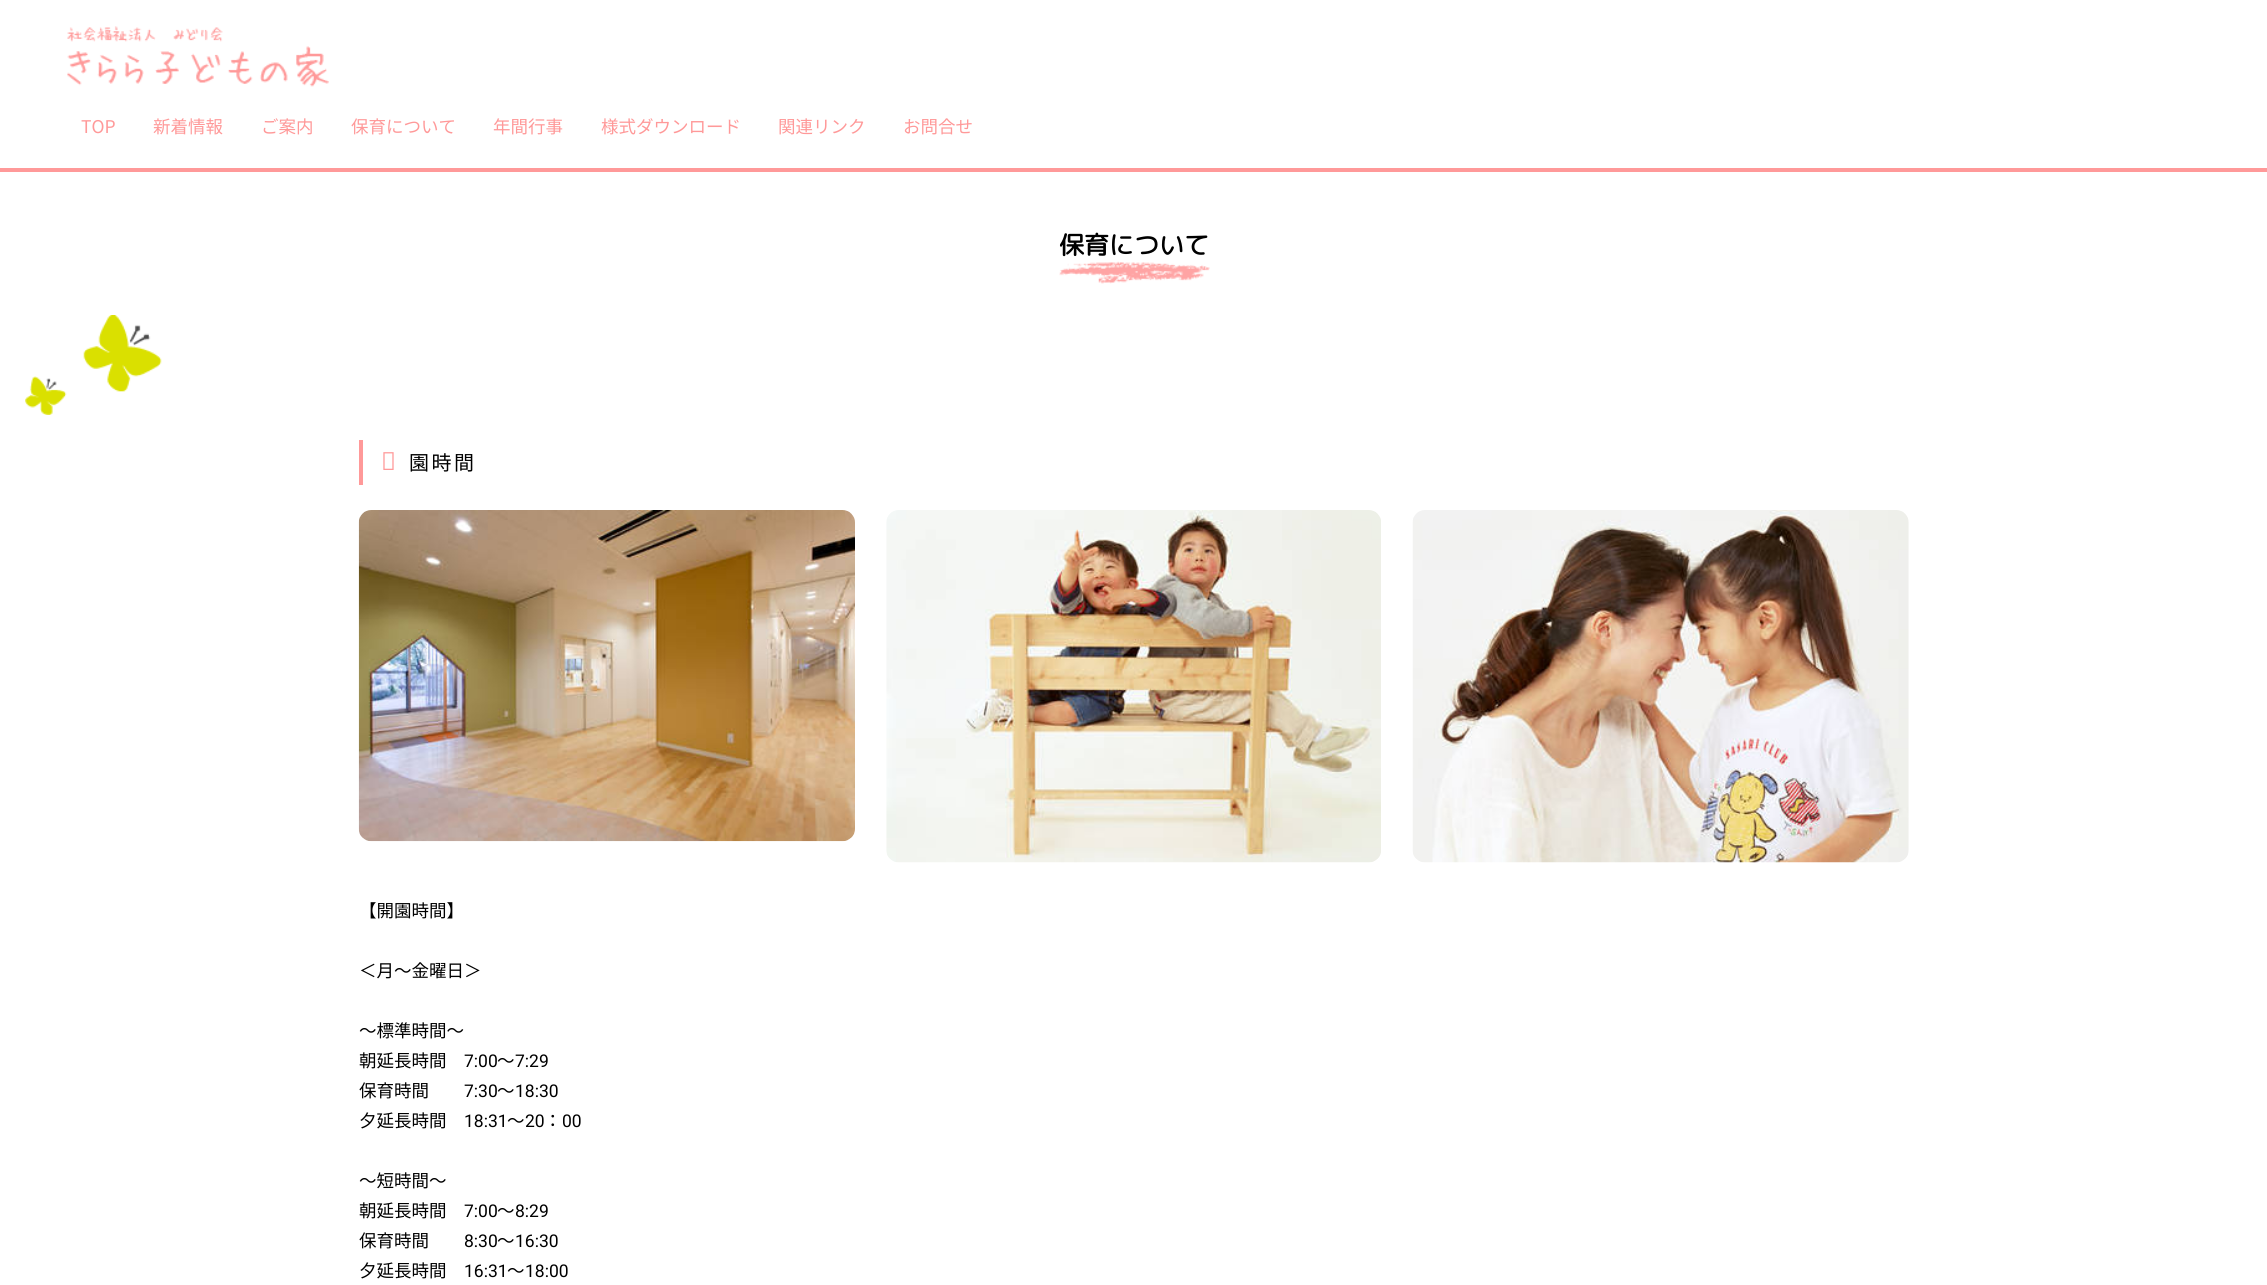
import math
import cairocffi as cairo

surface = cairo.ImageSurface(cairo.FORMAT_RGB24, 2267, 1285)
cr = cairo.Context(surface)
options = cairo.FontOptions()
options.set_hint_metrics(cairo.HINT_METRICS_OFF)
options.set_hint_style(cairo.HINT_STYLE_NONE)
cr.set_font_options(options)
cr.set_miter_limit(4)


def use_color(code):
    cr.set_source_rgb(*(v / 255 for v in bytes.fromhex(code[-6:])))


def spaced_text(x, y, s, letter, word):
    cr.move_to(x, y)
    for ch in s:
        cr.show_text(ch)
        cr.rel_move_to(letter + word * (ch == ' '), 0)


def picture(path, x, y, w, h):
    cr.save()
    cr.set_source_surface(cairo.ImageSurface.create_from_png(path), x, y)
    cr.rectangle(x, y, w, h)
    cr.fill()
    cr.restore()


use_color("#ffffff")
cr.paint()
use_color("#ff9999")
cr.rectangle(0, 168, 2267, 4)
cr.fill()
picture("img1.png", 67, 26, 262, 61)
cr.select_font_face("Noto Sans JP Thin")
cr.set_font_size(17.5)
cr.move_to(81, 133)
cr.show_text("TOP")
cr.move_to(153, 133)
cr.show_text("新着情報")
cr.move_to(261, 133)
cr.show_text("ご案内")
cr.move_to(351, 133)
cr.show_text("保育について")
cr.move_to(493, 133)
cr.show_text("年間行事")
cr.move_to(601, 133)
cr.show_text("様式ダウンロード")
cr.move_to(778, 133)
cr.show_text("関連リンク")
cr.move_to(903, 133)
cr.show_text("お問合せ")
cr.select_font_face("Rounded Mplus 1c", cairo.FONT_SLANT_NORMAL, cairo.FONT_WEIGHT_BOLD)
cr.set_font_size(25)
use_color("#000000")
cr.move_to(1059, 254)
cr.show_text("保育について")
picture("img2.png", 1059, 261, 151, 23)
picture("img3.png", 25, 315, 137, 100)
use_color("#ff9999")
cr.rectangle(359, 440, 4, 45)
cr.fill()
cr.select_font_face("Noto Sans")
spaced_text(381, 470, "開", 2.5, 0)
cr.select_font_face("Noto Sans JP Thin")
cr.set_font_size(20)
use_color("#000000")
spaced_text(409, 470, "園時間", 2.5, 0)
picture("img4.png", 358, 510, 497, 332)
picture("img5.png", 886, 510, 495, 353)
picture("img6.png", 1412, 510, 497, 353)
cr.set_font_size(17.5)
cr.move_to(359, 917)
cr.show_text("【開園時間】")
cr.move_to(359, 977)
cr.show_text("＜月～金曜日＞")
cr.move_to(359, 1037)
cr.show_text("～標準時間～")
cr.move_to(359, 1067)
cr.show_text("朝延長時間")
cr.select_font_face("Roboto")
cr.move_to(464, 1067)
cr.show_text("7:00")
cr.select_font_face("Noto Sans JP Thin")
cr.move_to(497, 1067)
cr.show_text("～")
cr.select_font_face("Roboto")
cr.move_to(515, 1067)
cr.show_text("7:29")
cr.select_font_face("Noto Sans JP Thin")
cr.move_to(359, 1097)
cr.show_text("保育時間")
cr.select_font_face("Roboto")
cr.move_to(464, 1097)
cr.show_text("7:30")
cr.select_font_face("Noto Sans JP Thin")
cr.move_to(497, 1097)
cr.show_text("～")
cr.select_font_face("Roboto")
cr.move_to(515, 1097)
cr.show_text("18:30")
cr.select_font_face("Noto Sans JP Thin")
cr.move_to(359, 1127)
cr.show_text("夕延長時間")
cr.select_font_face("Roboto")
cr.move_to(464, 1127)
cr.show_text("18:31")
cr.select_font_face("Noto Sans JP Thin")
cr.move_to(507, 1127)
cr.show_text("～")
cr.select_font_face("Roboto")
cr.move_to(525, 1127)
cr.show_text("20")
cr.select_font_face("Noto Sans JP Thin")
cr.move_to(544, 1127)
cr.show_text("：")
cr.select_font_face("Roboto")
cr.move_to(562, 1127)
cr.show_text("00")
cr.select_font_face("Noto Sans JP Thin")
cr.move_to(359, 1187)
cr.show_text("～短時間～")
cr.move_to(359, 1217)
cr.show_text("朝延長時間")
cr.select_font_face("Roboto")
cr.move_to(464, 1217)
cr.show_text("7:00")
cr.select_font_face("Noto Sans JP Thin")
cr.move_to(497, 1217)
cr.show_text("～")
cr.select_font_face("Roboto")
cr.move_to(515, 1217)
cr.show_text("8:29")
cr.select_font_face("Noto Sans JP Thin")
cr.move_to(359, 1247)
cr.show_text("保育時間")
cr.select_font_face("Roboto")
cr.move_to(464, 1247)
cr.show_text("8:30")
cr.select_font_face("Noto Sans JP Thin")
cr.move_to(497, 1247)
cr.show_text("～")
cr.select_font_face("Roboto")
cr.move_to(515, 1247)
cr.show_text("16:30")
cr.select_font_face("Noto Sans JP Thin")
cr.move_to(359, 1277)
cr.show_text("夕延長時間")
cr.select_font_face("Roboto")
cr.move_to(464, 1277)
cr.show_text("16:31")
cr.select_font_face("Noto Sans JP Thin")
cr.move_to(507, 1277)
cr.show_text("～")
cr.select_font_face("Roboto")
cr.move_to(525, 1277)
cr.show_text("18:00")
surface.write_to_png("result.png")
